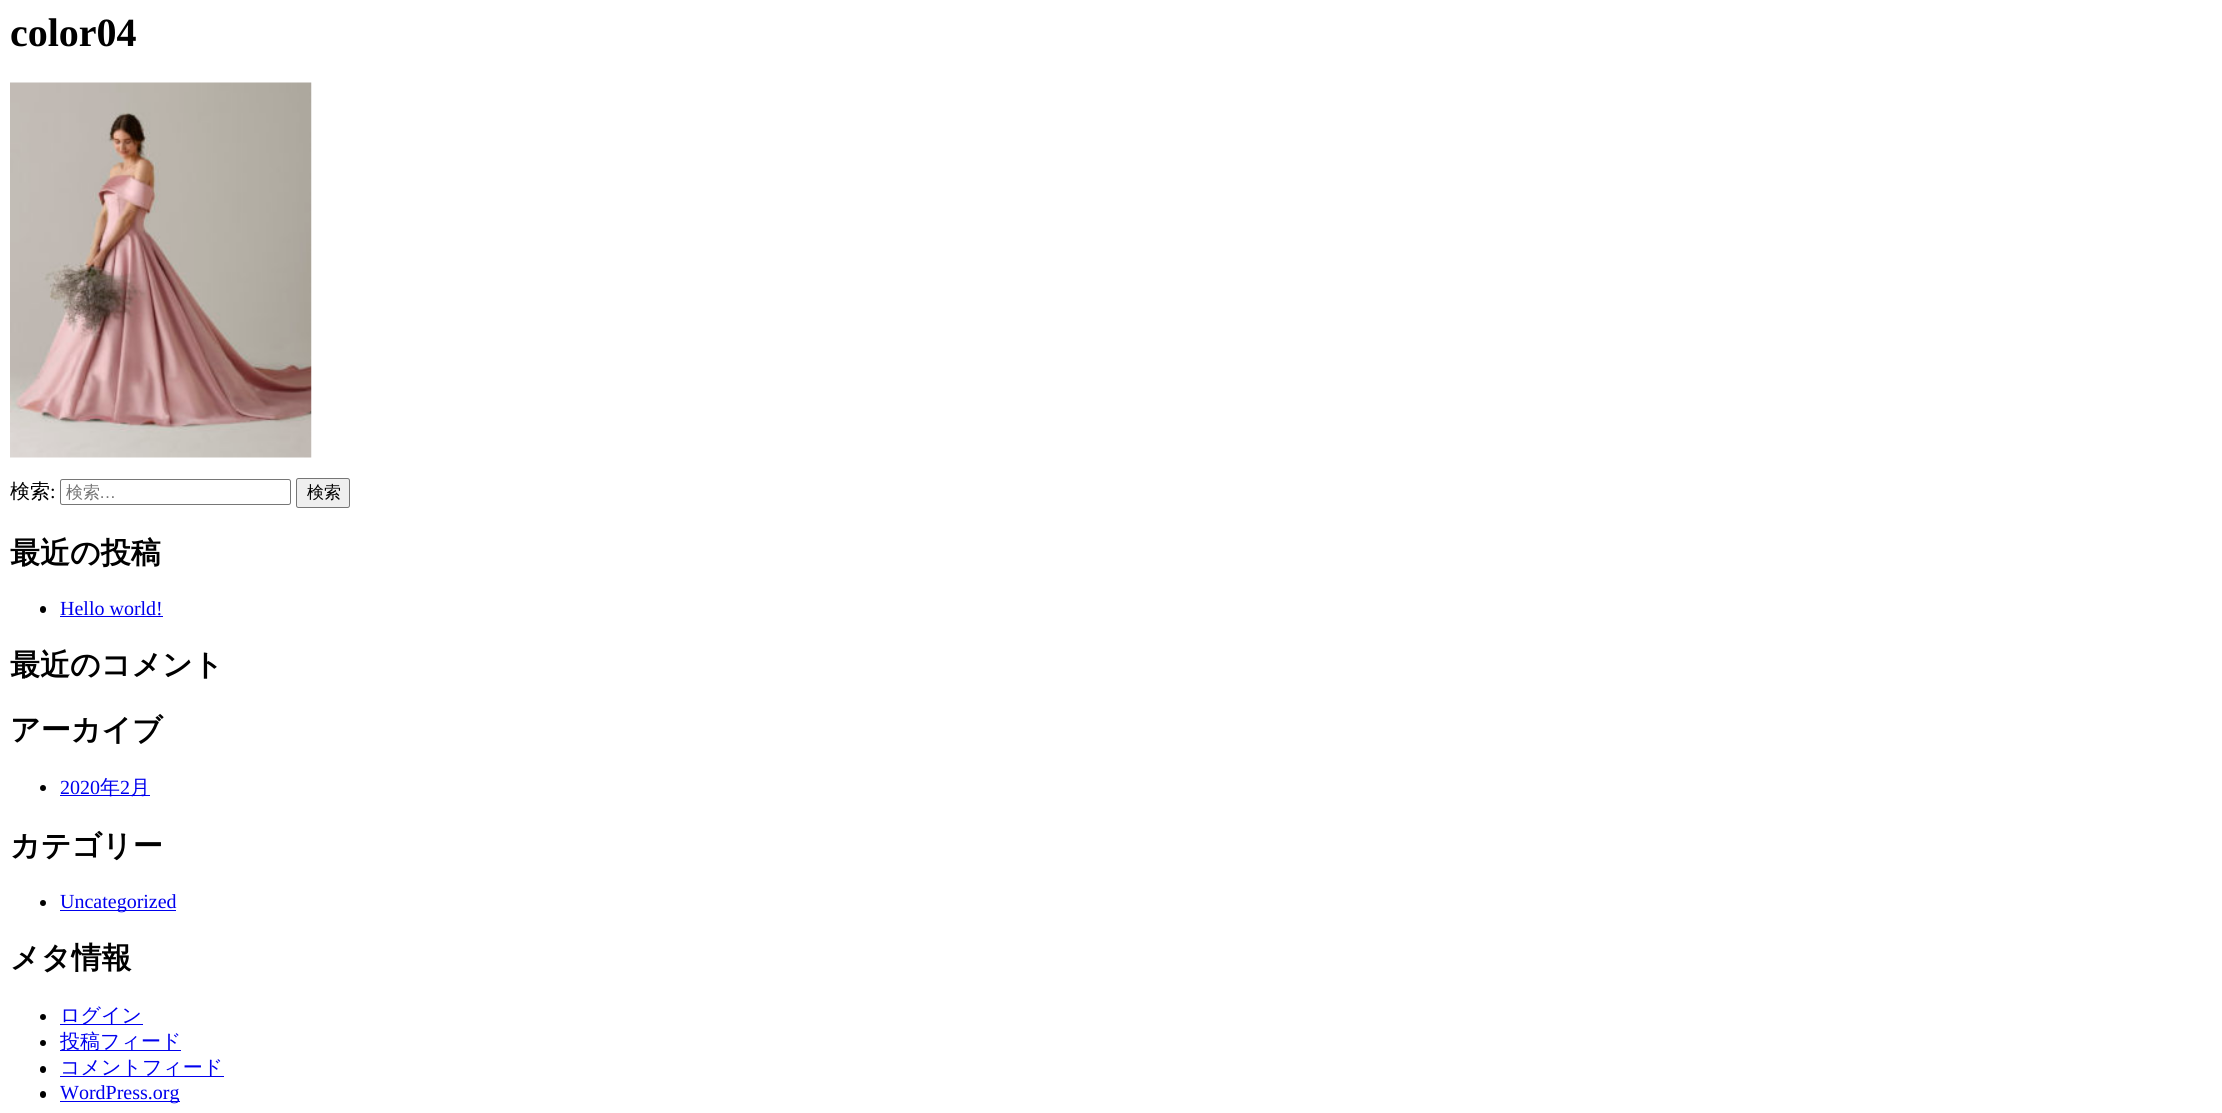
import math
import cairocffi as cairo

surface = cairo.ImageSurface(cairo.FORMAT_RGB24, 2222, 1113)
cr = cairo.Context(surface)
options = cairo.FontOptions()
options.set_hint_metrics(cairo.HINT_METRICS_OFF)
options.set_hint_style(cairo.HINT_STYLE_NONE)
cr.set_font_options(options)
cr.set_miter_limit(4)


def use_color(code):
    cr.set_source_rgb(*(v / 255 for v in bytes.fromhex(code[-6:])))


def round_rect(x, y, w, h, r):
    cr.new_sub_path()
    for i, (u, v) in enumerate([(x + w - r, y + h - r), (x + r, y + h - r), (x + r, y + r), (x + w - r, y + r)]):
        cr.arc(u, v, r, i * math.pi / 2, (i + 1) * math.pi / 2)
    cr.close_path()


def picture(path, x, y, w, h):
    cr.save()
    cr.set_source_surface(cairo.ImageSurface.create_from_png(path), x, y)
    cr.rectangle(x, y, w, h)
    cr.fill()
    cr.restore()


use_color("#ffffff")
cr.paint()
cr.select_font_face("Liberation Serif", cairo.FONT_SLANT_NORMAL, cairo.FONT_WEIGHT_BOLD)
cr.set_font_size(40)
use_color("#000000")
cr.move_to(10, 46)
cr.show_text("color04")
picture("img1.png", 10, 82, 302, 376)
cr.select_font_face("WenQuanYi Zen Hei Medium")
cr.set_font_size(20)
cr.move_to(10, 498)
cr.show_text("検索")
cr.select_font_face("Liberation Serif")
cr.move_to(50, 498)
cr.show_text(":")
round_rect(60.5, 479.5, 230, 25, 2)
use_color("#767676")
cr.set_line_width(1)
cr.stroke()
cr.select_font_face("WenQuanYi Zen Hei Medium")
cr.set_font_size(17)
use_color("#757575")
cr.move_to(66, 498)
cr.show_text("検索")
cr.select_font_face("Liberation Sans")
cr.move_to(99, 498)
cr.show_text("…")
use_color("#efefef")
round_rect(296.5, 478.5, 53, 29, 2)
cr.fill_preserve()
use_color("#767676")
cr.stroke()
cr.select_font_face("WenQuanYi Zen Hei Medium")
use_color("#000000")
cr.move_to(307, 498)
cr.show_text("検索")
cr.select_font_face("WenQuanYi Zen Hei", cairo.FONT_SLANT_NORMAL, cairo.FONT_WEIGHT_BOLD)
cr.set_font_size(30)
cr.move_to(10, 563)
cr.show_text("最近の投稿")
round_rect(40, 606, 6, 7, 3)
cr.fill()
cr.select_font_face("Liberation Serif")
cr.set_font_size(20)
use_color("#0000ee")
cr.move_to(60, 615)
cr.show_text("Hello world!")
cr.rectangle(60, 616, 103, 1)
cr.fill()
cr.select_font_face("WenQuanYi Zen Hei", cairo.FONT_SLANT_NORMAL, cairo.FONT_WEIGHT_BOLD)
cr.set_font_size(30)
use_color("#000000")
cr.move_to(10, 675)
cr.show_text("最近のコメント")
cr.move_to(10, 740)
cr.show_text("アーカイブ")
cr.new_path()
cr.arc(43, 788, 3, 0, 2 * math.pi)
cr.fill()
cr.select_font_face("Liberation Serif")
cr.set_font_size(20)
use_color("#0000ee")
cr.move_to(60, 794)
cr.show_text("2020")
cr.rectangle(60, 795, 90, 1)
cr.fill()
cr.select_font_face("WenQuanYi Zen Hei Medium")
cr.move_to(100, 794)
cr.show_text("年")
cr.select_font_face("Liberation Serif")
cr.move_to(120, 794)
cr.show_text("2")
cr.select_font_face("WenQuanYi Zen Hei Medium")
cr.move_to(130, 794)
cr.show_text("月")
cr.select_font_face("WenQuanYi Zen Hei", cairo.FONT_SLANT_NORMAL, cairo.FONT_WEIGHT_BOLD)
cr.set_font_size(30)
use_color("#000000")
cr.move_to(10, 856)
cr.show_text("カテゴリー")
cr.new_path()
cr.arc(43, 903, 3, 0, 2 * math.pi)
cr.fill()
use_color("#0000ee")
cr.rectangle(60, 910, 116, 1)
cr.fill()
cr.select_font_face("Liberation Serif")
cr.set_font_size(20)
cr.move_to(60, 908)
cr.show_text("Uncategorized")
cr.select_font_face("WenQuanYi Zen Hei", cairo.FONT_SLANT_NORMAL, cairo.FONT_WEIGHT_BOLD)
cr.set_font_size(30)
use_color("#000000")
cr.move_to(10, 968)
cr.show_text("メタ情報")
cr.new_path()
cr.arc(43, 1017, 3, 0, 2 * math.pi)
cr.fill()
use_color("#0000ee")
cr.rectangle(60, 1024, 83, 1)
cr.fill()
cr.select_font_face("WenQuanYi Zen Hei Medium")
cr.set_font_size(20)
cr.move_to(60, 1022)
cr.show_text("ログイン")
use_color("#000000")
cr.new_path()
cr.arc(43, 1043, 3, 0, 2 * math.pi)
cr.fill()
use_color("#0000ee")
cr.rectangle(60, 1050, 121, 1)
cr.fill()
cr.move_to(60, 1048)
cr.show_text("投稿フィード")
use_color("#000000")
round_rect(40, 1066, 6, 7, 3)
cr.fill()
use_color("#0000ee")
cr.rectangle(60, 1076, 164, 1)
cr.fill()
cr.move_to(60, 1074)
cr.show_text("コメントフィード")
use_color("#000000")
round_rect(40, 1091, 6, 7, 3)
cr.fill()
use_color("#0000ee")
cr.rectangle(60, 1101, 120, 1)
cr.fill()
cr.select_font_face("Liberation Serif")
cr.move_to(60, 1099)
cr.show_text("WordPress.org")
surface.write_to_png("result.png")
